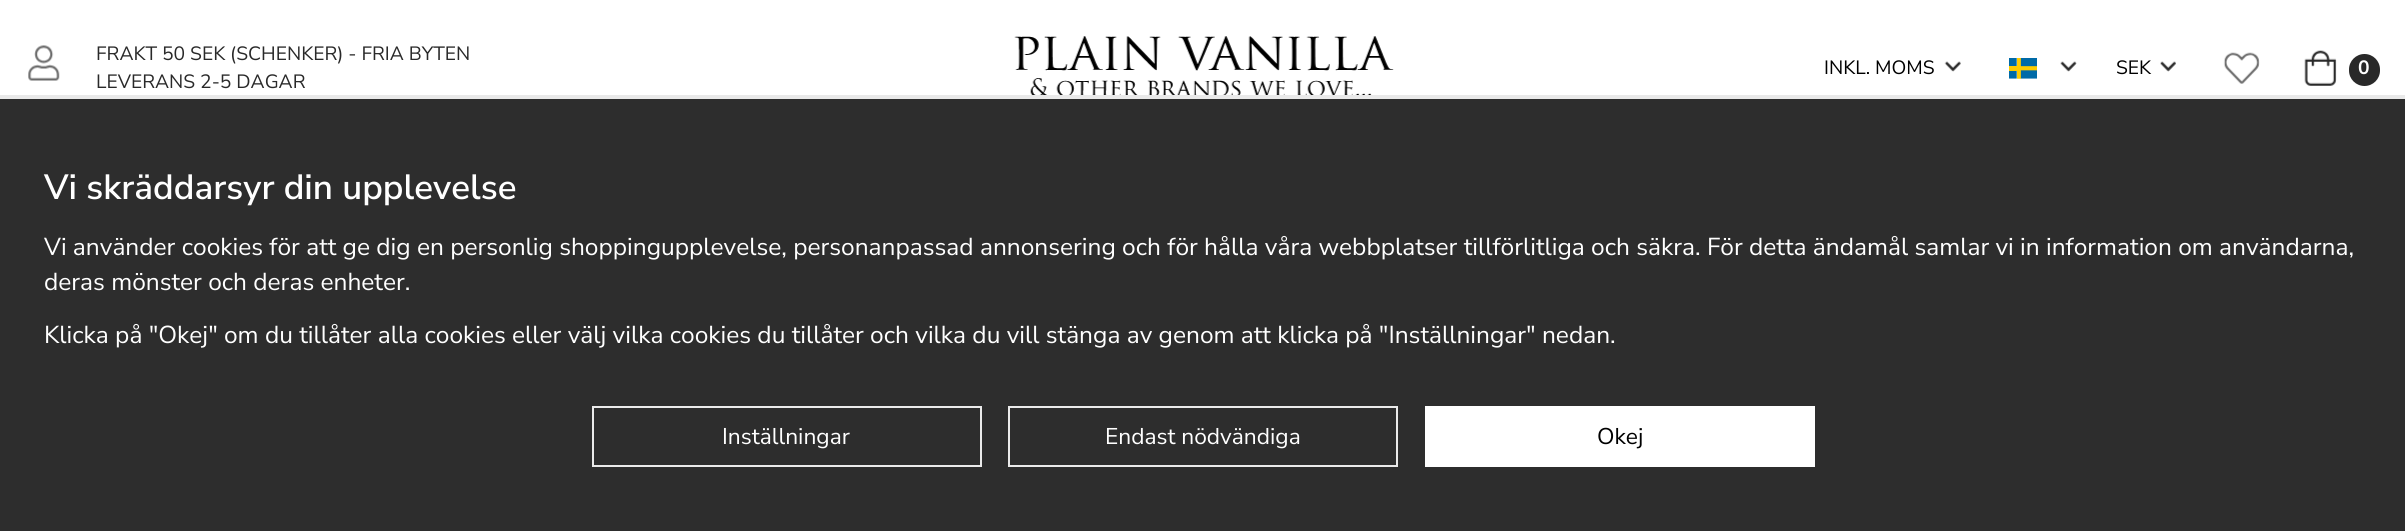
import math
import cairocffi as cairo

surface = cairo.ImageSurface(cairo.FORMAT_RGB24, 2405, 531)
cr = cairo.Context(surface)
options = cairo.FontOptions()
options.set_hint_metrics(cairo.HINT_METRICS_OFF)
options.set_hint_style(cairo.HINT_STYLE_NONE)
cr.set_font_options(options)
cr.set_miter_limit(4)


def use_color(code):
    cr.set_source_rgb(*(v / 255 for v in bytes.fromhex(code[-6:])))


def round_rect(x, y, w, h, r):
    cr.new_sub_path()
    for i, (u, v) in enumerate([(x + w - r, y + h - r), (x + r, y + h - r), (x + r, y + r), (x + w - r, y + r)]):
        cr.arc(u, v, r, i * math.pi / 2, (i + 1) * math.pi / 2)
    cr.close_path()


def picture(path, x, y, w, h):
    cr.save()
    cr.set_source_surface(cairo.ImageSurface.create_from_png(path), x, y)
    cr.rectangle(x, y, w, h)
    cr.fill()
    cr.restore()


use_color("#ffffff")
cr.paint()
picture("img1.png", 28, 45, 32, 36)
cr.select_font_face("Nunito Sans")
cr.set_font_size(19.25)
use_color("#292929")
cr.move_to(96, 60)
cr.show_text("FRAKT 50 SEK (SCHENKER) - FRIA BYTEN")
cr.move_to(96, 88)
cr.show_text("LEVERANS 2-5 DAGAR")
picture("img2.png", 1014, 36, 380, 59)
use_color("#000000")
cr.move_to(1824, 74)
cr.show_text("INKL. MOMS")
picture("img3.png", 1944, 61, 17, 11)
picture("img4.png", 2009, 58, 28, 21)
picture("img5.png", 2060, 61, 17, 11)
cr.move_to(2116, 74)
cr.show_text("SEK")
picture("img6.png", 2160, 61, 16, 11)
picture("img7.png", 2223, 52, 37, 32)
picture("img8.png", 2304, 50, 33, 36)
use_color("#292929")
round_rect(2349, 54, 31, 32, 15.5)
cr.fill()
cr.select_font_face("Nunito Sans", cairo.FONT_SLANT_NORMAL, cairo.FONT_WEIGHT_BOLD)
use_color("#ffffff")
cr.move_to(2358, 74)
cr.show_text("0")
use_color("#2d2d2d")
cr.rectangle(0, 99, 2405, 432)
cr.fill()
use_color("#e9e9e9")
cr.rectangle(0, 95, 2405, 4)
cr.fill()
cr.select_font_face("Nunito Sans SemiBold")
cr.set_font_size(35)
use_color("#ffffff")
cr.move_to(44, 199)
cr.show_text("Vi skräddarsyr din upplevelse")
cr.select_font_face("Nunito Sans")
cr.set_font_size(24.5)
cr.move_to(44, 255)
cr.show_text("Vi använder cookies för att ge dig en personlig shoppingupplevelse, personanpassad annonsering och för hålla våra webbplatser tillförlitliga och säkra. För detta ändamål samlar vi in information om användarna,")
cr.move_to(44, 290)
cr.show_text("deras mönster och deras enheter.")
cr.move_to(44, 343)
cr.show_text("Klicka på \"Okej\" om du tillåter alla cookies eller välj vilka cookies du tillåter och vilka du vill stänga av genom att klicka på \"Inställningar\" nedan.")
cr.rectangle(593, 407, 388, 59)
use_color("#eaeaea")
cr.stroke()
cr.set_font_size(22.75)
use_color("#ffffff")
cr.move_to(722, 444)
cr.show_text("Inställningar")
cr.rectangle(1009, 407, 388, 59)
use_color("#eaeaea")
cr.stroke()
use_color("#ffffff")
cr.move_to(1105, 444)
cr.show_text("Endast nödvändiga")
cr.rectangle(1425, 406, 390, 61)
cr.fill()
use_color("#000000")
cr.move_to(1597, 444)
cr.show_text("Okej")
surface.write_to_png("result.png")
